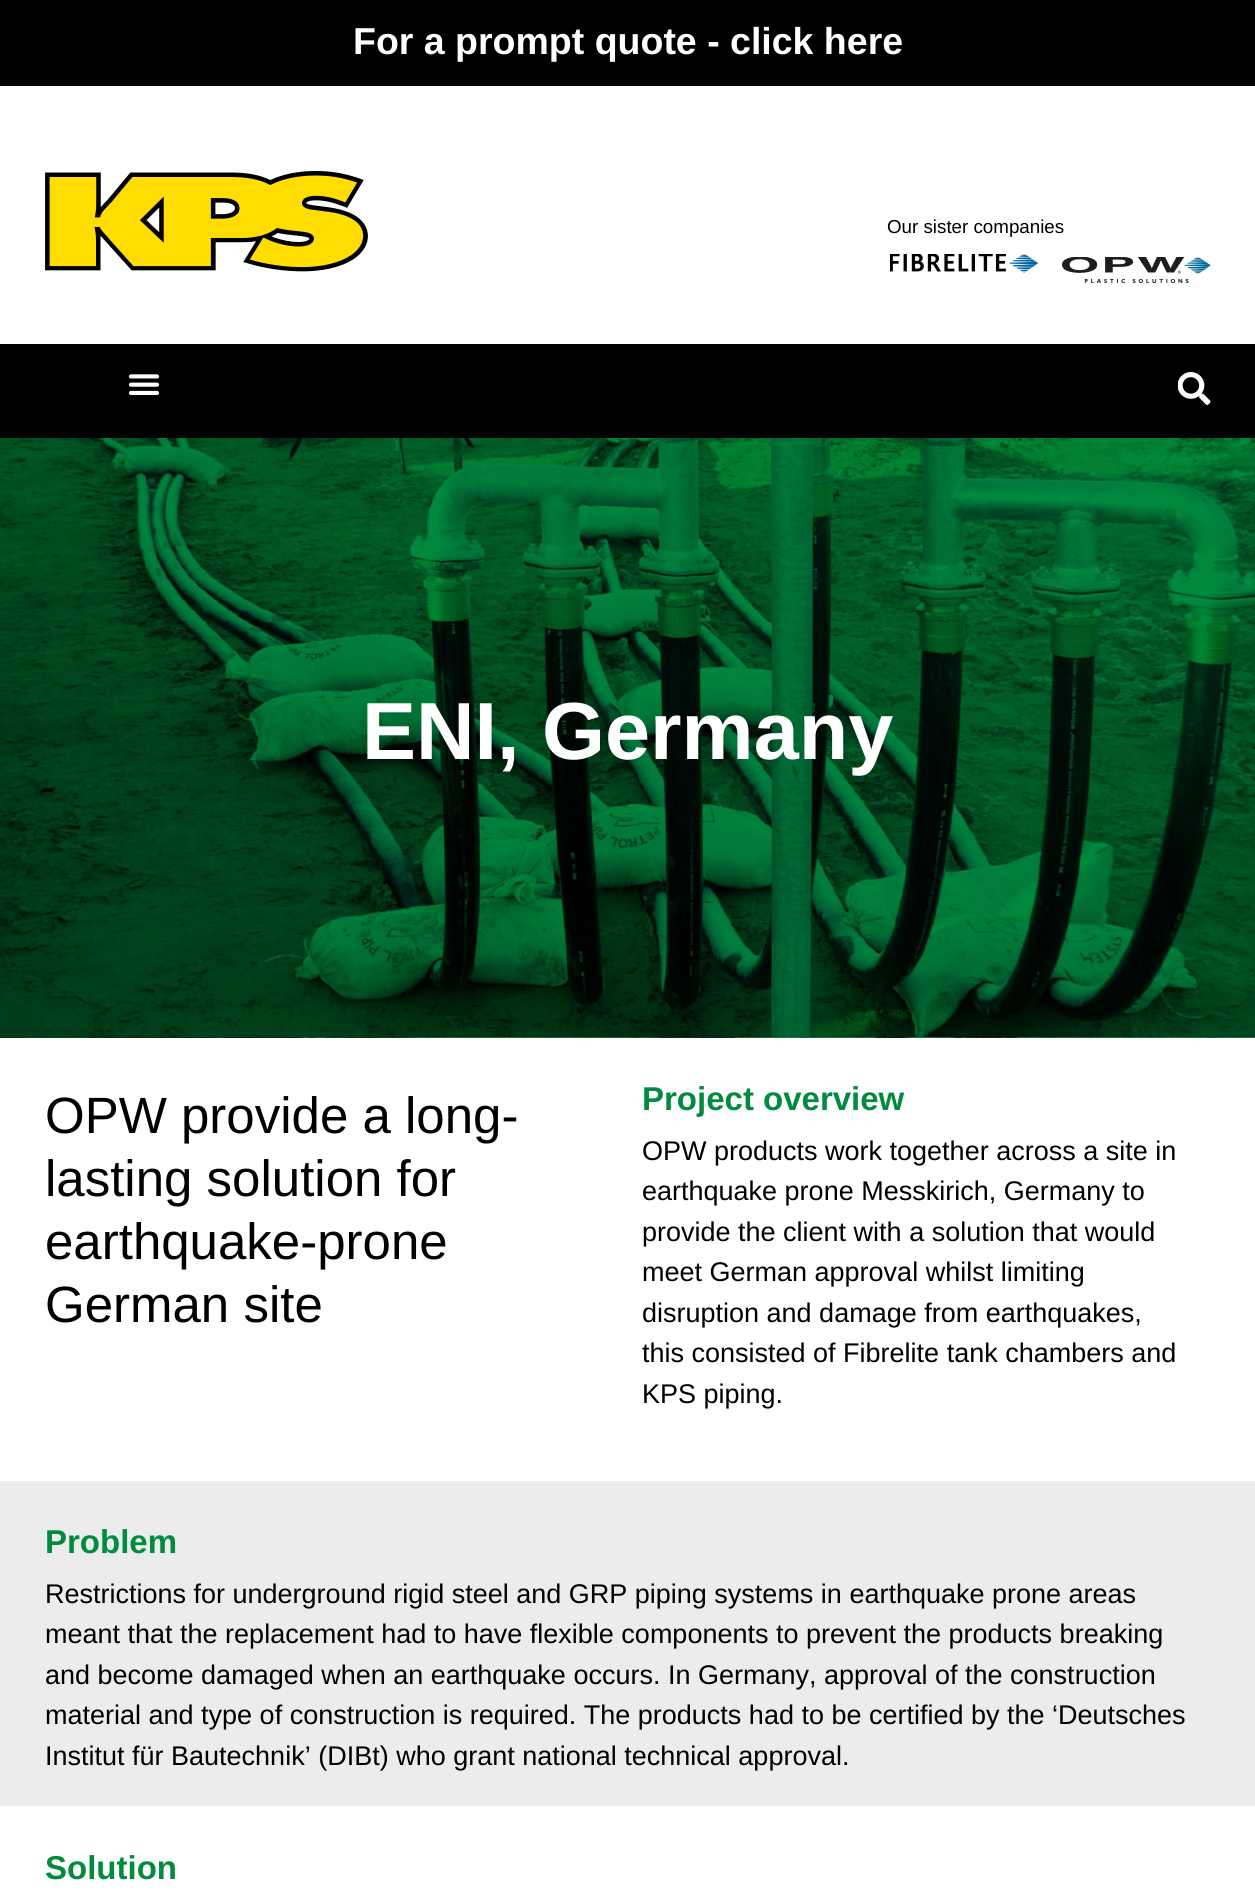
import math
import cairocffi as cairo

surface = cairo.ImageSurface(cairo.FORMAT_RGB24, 1255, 1896)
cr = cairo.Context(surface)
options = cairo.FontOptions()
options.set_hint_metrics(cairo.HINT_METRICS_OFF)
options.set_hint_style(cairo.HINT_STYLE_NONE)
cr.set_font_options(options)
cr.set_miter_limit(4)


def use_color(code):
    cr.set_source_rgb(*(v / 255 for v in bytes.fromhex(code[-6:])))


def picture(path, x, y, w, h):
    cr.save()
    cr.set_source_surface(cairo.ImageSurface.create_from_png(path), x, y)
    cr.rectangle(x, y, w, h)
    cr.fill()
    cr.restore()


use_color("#ffffff")
cr.paint()
use_color("#000000")
cr.rectangle(0, 0, 1255, 86)
cr.fill()
cr.select_font_face("Liberation Sans", cairo.FONT_SLANT_NORMAL, cairo.FONT_WEIGHT_BOLD)
cr.set_font_size(37.5)
use_color("#ffffff")
cr.move_to(353, 54)
cr.show_text("For a prompt quote - click here")
picture("img1.png", 45, 171, 323, 101)
cr.select_font_face("Liberation Sans")
cr.set_font_size(18.75)
use_color("#000000")
cr.move_to(887, 233)
cr.show_text("Our sister companies")
picture("img2.png", 890, 254, 148, 19)
picture("img3.png", 1062, 257, 149, 26)
cr.rectangle(0, 344, 1255, 94)
cr.fill()
picture("img4.png", 128, 374, 32, 21)
picture("img5.png", 1178, 372, 33, 33)
picture("img6.png", 0, 438, 1255, 600)
cr.select_font_face("Liberation Sans", cairo.FONT_SLANT_NORMAL, cairo.FONT_WEIGHT_BOLD)
cr.set_font_size(81)
use_color("#ffffff")
cr.move_to(362, 759)
cr.show_text("ENI, Germany")
cr.select_font_face("Liberation Sans")
cr.set_font_size(51)
use_color("#000000")
cr.move_to(45, 1133)
cr.show_text("OPW provide a long-")
cr.move_to(45, 1196)
cr.show_text("lasting solution for")
cr.move_to(45, 1259)
cr.show_text("earthquake-prone")
cr.move_to(45, 1322)
cr.show_text("German site")
cr.select_font_face("Liberation Sans", cairo.FONT_SLANT_NORMAL, cairo.FONT_WEIGHT_BOLD)
cr.set_font_size(33)
use_color("#008b3e")
cr.move_to(642, 1110)
cr.show_text("Project overview")
cr.select_font_face("Liberation Sans")
cr.set_font_size(27)
use_color("#000000")
cr.move_to(642, 1160)
cr.show_text("OPW products work together across a site in")
cr.move_to(642, 1200)
cr.show_text("earthquake prone Messkirich, Germany to")
cr.move_to(642, 1241)
cr.show_text("provide the client with a solution that would")
cr.move_to(642, 1281)
cr.show_text("meet German approval whilst limiting")
cr.move_to(642, 1322)
cr.show_text("disruption and damage from earthquakes,")
cr.move_to(642, 1362)
cr.show_text("this consisted of Fibrelite tank chambers and")
cr.move_to(642, 1403)
cr.show_text("KPS piping.")
use_color("#ececec")
cr.rectangle(0, 1481, 1255, 325)
cr.fill()
cr.select_font_face("Liberation Sans", cairo.FONT_SLANT_NORMAL, cairo.FONT_WEIGHT_BOLD)
cr.set_font_size(33)
use_color("#008b3e")
cr.move_to(45, 1553)
cr.show_text("Problem")
cr.select_font_face("Liberation Sans")
cr.set_font_size(27)
use_color("#000000")
cr.move_to(45, 1603)
cr.show_text("Restrictions for underground rigid steel and GRP piping systems in earthquake prone areas")
cr.move_to(45, 1643)
cr.show_text("meant that the replacement had to have flexible components to prevent the products breaking")
cr.move_to(45, 1684)
cr.show_text("and become damaged when an earthquake occurs. In Germany, approval of the construction")
cr.move_to(45, 1724)
cr.show_text("material and type of construction is required. The products had to be certified by the ‘Deutsches")
cr.move_to(45, 1765)
cr.show_text("Institut für Bautechnik’ (DIBt) who grant national technical approval.")
cr.select_font_face("Liberation Sans", cairo.FONT_SLANT_NORMAL, cairo.FONT_WEIGHT_BOLD)
cr.set_font_size(33)
use_color("#008b3e")
cr.move_to(45, 1879)
cr.show_text("Solution")
surface.write_to_png("result.png")
